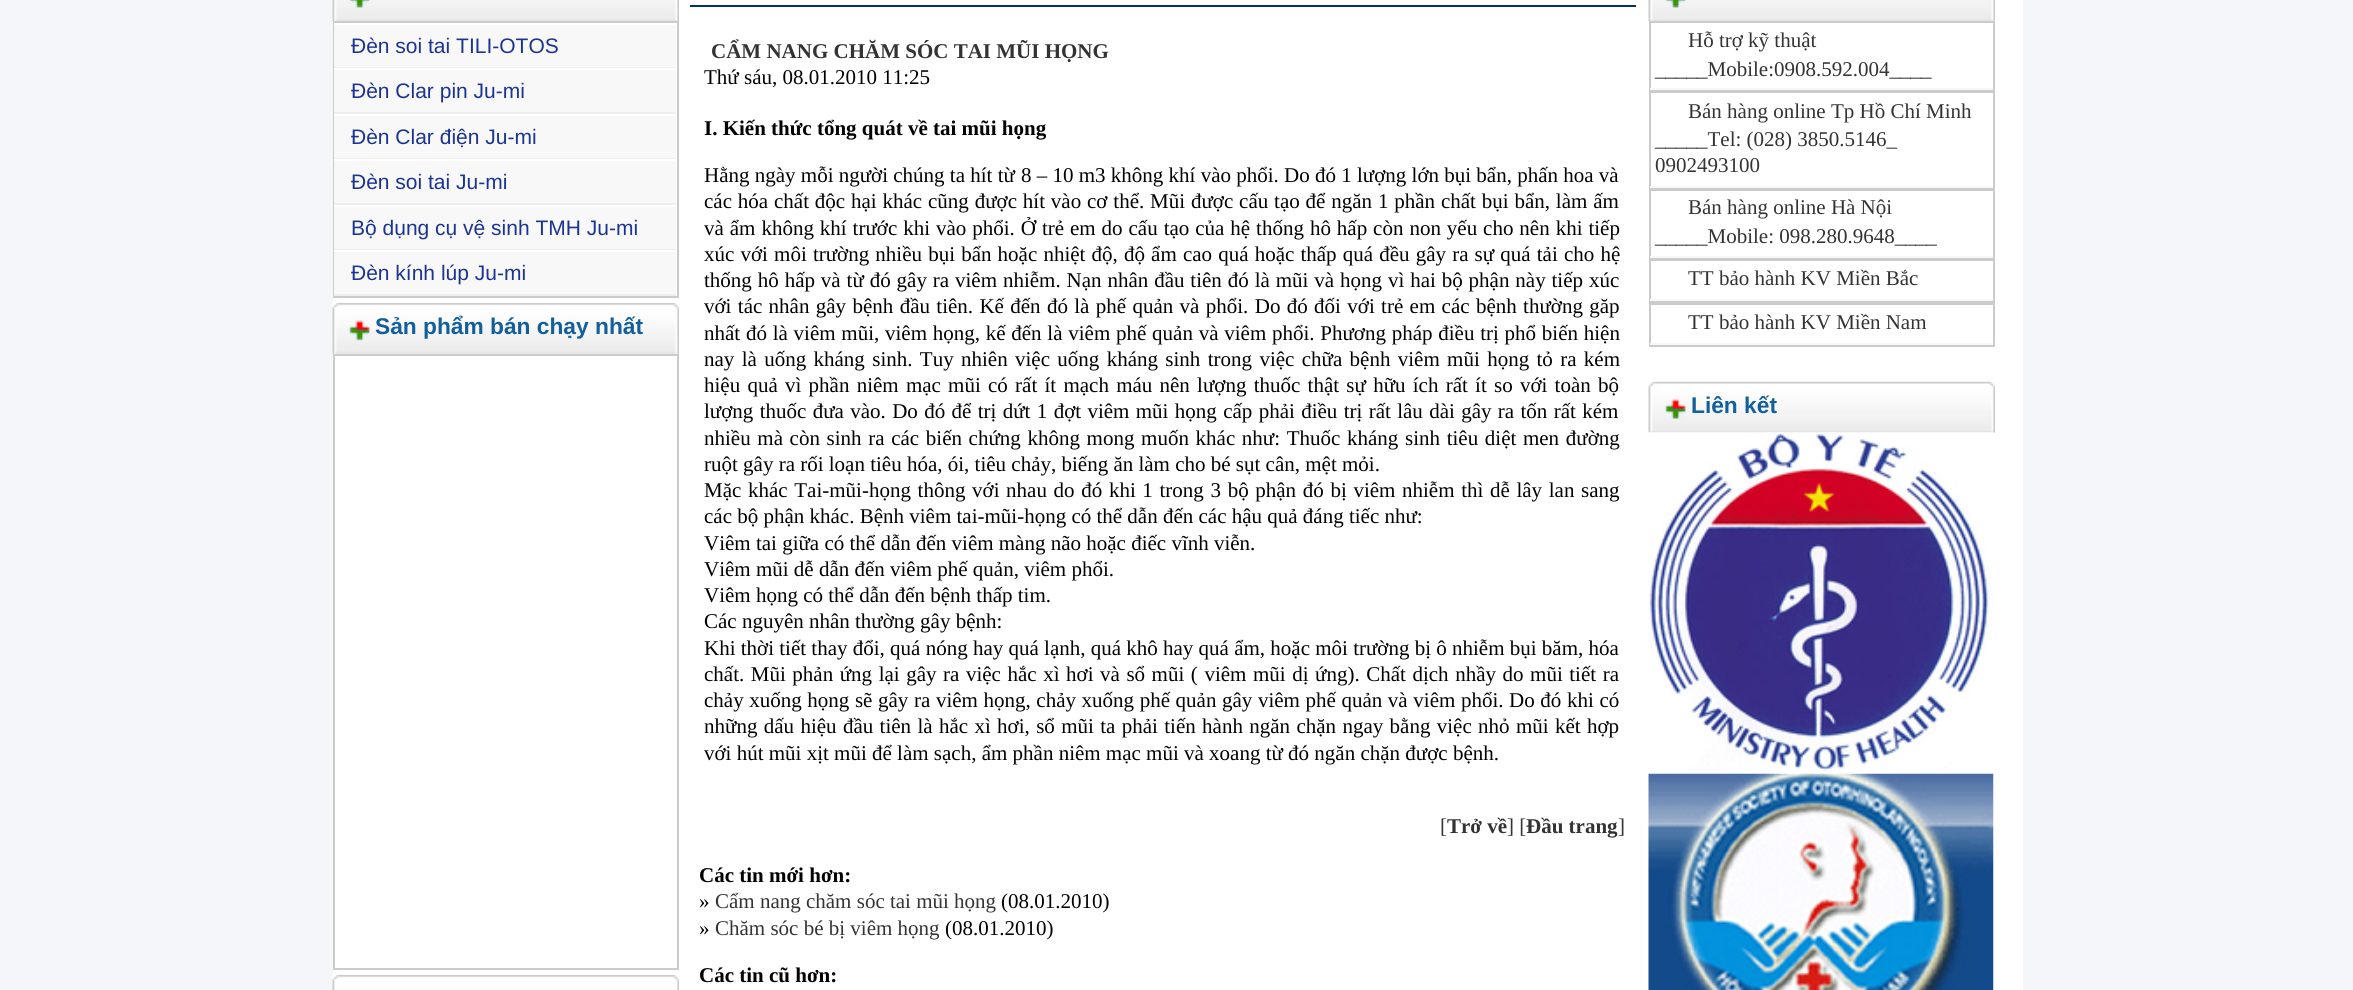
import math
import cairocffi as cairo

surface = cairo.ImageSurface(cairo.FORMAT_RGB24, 2353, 990)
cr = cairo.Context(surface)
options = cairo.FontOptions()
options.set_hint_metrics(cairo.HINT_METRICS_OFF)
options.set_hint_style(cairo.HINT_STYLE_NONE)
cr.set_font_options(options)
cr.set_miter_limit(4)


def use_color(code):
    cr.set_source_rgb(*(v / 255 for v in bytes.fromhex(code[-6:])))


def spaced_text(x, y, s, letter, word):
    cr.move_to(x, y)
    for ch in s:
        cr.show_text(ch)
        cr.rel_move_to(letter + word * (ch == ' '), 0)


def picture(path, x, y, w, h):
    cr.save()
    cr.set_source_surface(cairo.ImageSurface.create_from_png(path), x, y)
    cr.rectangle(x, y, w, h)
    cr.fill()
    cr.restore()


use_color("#f5f6fa")
cr.paint()
use_color("#ffffff")
cr.rectangle(333, 0, 1690, 990)
cr.fill()
picture("img1.png", 332, 0, 347, 22)
cr.rectangle(334, 22, 344, 275)
use_color("#cbcbcb")
cr.stroke()
use_color("#f8f8f8")
cr.rectangle(334, 25, 342, 42)
cr.fill()
use_color("#ffffff")
cr.rectangle(334, 23, 1, 2)
cr.fill()
use_color("#eeeeee")
cr.rectangle(334, 67, 342, 1)
cr.fill()
cr.select_font_face("Liberation Sans")
cr.set_font_size(21)
use_color("#1b3491")
cr.move_to(351, 53)
cr.show_text("Đèn soi tai TILI-OTOS")
use_color("#f8f8f8")
cr.rectangle(334, 70, 342, 42)
cr.fill()
use_color("#ffffff")
cr.rectangle(334, 68, 1, 2)
cr.fill()
use_color("#eeeeee")
cr.rectangle(334, 112, 342, 2)
cr.fill()
use_color("#1b3491")
cr.move_to(351, 98)
cr.show_text("Đèn Clar pin Ju-mi")
use_color("#f8f8f8")
cr.rectangle(334, 116, 342, 42)
cr.fill()
use_color("#ffffff")
cr.rectangle(334, 114, 1, 2)
cr.fill()
use_color("#eeeeee")
cr.rectangle(334, 158, 342, 1)
cr.fill()
use_color("#1b3491")
cr.move_to(351, 144)
cr.show_text("Đèn Clar điện Ju-mi")
use_color("#f8f8f8")
cr.rectangle(334, 161, 342, 42)
cr.fill()
use_color("#ffffff")
cr.rectangle(334, 159, 1, 2)
cr.fill()
use_color("#eeeeee")
cr.rectangle(334, 203, 342, 2)
cr.fill()
use_color("#1b3491")
cr.move_to(351, 189)
cr.show_text("Đèn soi tai Ju-mi")
use_color("#f8f8f8")
cr.rectangle(334, 207, 342, 42)
cr.fill()
use_color("#ffffff")
cr.rectangle(334, 205, 1, 2)
cr.fill()
use_color("#eeeeee")
cr.rectangle(334, 249, 342, 1)
cr.fill()
use_color("#1b3491")
cr.move_to(351, 235)
cr.show_text("Bộ dụng cụ vệ sinh TMH Ju-mi")
use_color("#f8f8f8")
cr.rectangle(334, 252, 342, 42)
cr.fill()
use_color("#ffffff")
cr.rectangle(334, 250, 1, 2)
cr.fill()
use_color("#eeeeee")
cr.rectangle(334, 294, 342, 2)
cr.fill()
use_color("#1b3491")
cr.move_to(351, 280)
cr.show_text("Đèn kính lúp Ju-mi")
picture("img2.png", 332, 303, 347, 51)
cr.select_font_face("Liberation Sans", cairo.FONT_SLANT_NORMAL, cairo.FONT_WEIGHT_BOLD)
cr.set_font_size(22.75)
use_color("#125f9c")
cr.move_to(375, 334)
cr.show_text("Sản phẩm bán chạy nhất")
cr.rectangle(334, 355, 344, 614)
use_color("#cbcbcb")
cr.stroke()
picture("img3.png", 332, 975, 347, 15)
use_color("#003366")
cr.rectangle(690, 5, 946, 2)
cr.fill()
cr.select_font_face("Liberation Serif", cairo.FONT_SLANT_NORMAL, cairo.FONT_WEIGHT_BOLD)
cr.set_font_size(21)
use_color("#333333")
cr.move_to(711, 58)
cr.show_text("CẨM NANG CHĂM SÓC TAI MŨI HỌNG")
cr.select_font_face("Liberation Serif")
use_color("#000000")
cr.move_to(704, 84)
cr.show_text("Thứ sáu, 08.01.2010 11:25")
cr.select_font_face("Liberation Serif", cairo.FONT_SLANT_NORMAL, cairo.FONT_WEIGHT_BOLD)
cr.move_to(704, 135)
cr.show_text("I. Kiến thức tổng quát về tai mũi họng")
cr.select_font_face("Liberation Serif")
cr.move_to(704, 182)
cr.show_text("Hằng ngày mỗi người chúng ta hít từ")
cr.move_to(1021, 182)
cr.show_text("8 – 10 m3 không khí vào phổi. Do đó 1 lượng lớn bụi bẩn, phấn hoa và")
spaced_text(704, 208, "các hóa chất độc hại khác cũng được hít vào cơ thể. Mũi được cấu tạo để ngăn 1 phần chất bụi bẩn, làm ấm", 0, 0.6)
spaced_text(704, 235, "và ẩm không khí trước khi vào phổi. Ở trẻ em do cấu tạo của hệ thống hô hấp còn non yếu cho nên khi tiếp", 0, 0.7)
spaced_text(704, 261, "xúc với môi trường nhiều bụi bẩn hoặc nhiệt độ, độ ẩm cao quá hoặc thấp quá đều gây ra sự quá tải cho hệ", 0, 0.9)
spaced_text(704, 287, "thống hô hấp và từ đó gây ra viêm nhiễm. Nạn nhân đầu tiên đó là mũi và họng vì hai bộ phận này tiếp xúc", 0, 0.65)
spaced_text(704, 313, "với tác nhân gây bệnh đầu tiên. Kế đến đó là phế quản và phổi. Do đó đối với trẻ em các bệnh thường găp", 0, 1.1)
spaced_text(704, 340, "nhất đó là viêm mũi, viêm họng, kế đến là viêm phế quản và viêm phổi. Phương pháp điều trị phổ biến hiện", 0, 0.5)
spaced_text(704, 366, "nay là uống kháng sinh. Tuy nhiên việc uống kháng sinh trong việc chữa bệnh viêm mũi họng tỏ ra kém", 0, 2.1)
spaced_text(704, 392, "hiệu quả vì phần niêm mạc mũi có rất ít mạch máu nên lượng thuốc thật sự hữu ích rất ít so với toàn bộ", 0, 2)
spaced_text(704, 418, "lượng thuốc đưa vào. Do đó để trị dứt 1 đợt viêm mũi họng cấp phải điều trị rất lâu dài gây ra tốn rất kém", 0, 1.1)
spaced_text(704, 445, "nhiều mà còn sinh ra các biến chứng không mong muốn khác như: Thuốc kháng sinh tiêu diệt men đường", 0, 1.4)
cr.move_to(704, 471)
cr.show_text("ruột gây ra rối loạn tiêu hóa, ói, tiêu chảy, biếng ăn làm cho bé sụt cân, mệt mỏi.")
spaced_text(704, 497, "Mặc khác Tai-mũi-họng thông với nhau do đó khi 1 trong 3 bộ phận đó bị viêm nhiễm thì dễ lây lan sang", 0, 1.4)
cr.move_to(704, 523)
cr.show_text("các bộ phận khác. Bệnh viêm tai-mũi-họng có thể dẫn đến các hậu quả đáng tiếc như:")
cr.move_to(704, 550)
cr.show_text("Viêm tai giữa có thể dẫn đến viêm màng não hoặc điếc vĩnh viễn.")
cr.move_to(704, 576)
cr.show_text("Viêm mũi dễ dẫn đến viêm phế quản, viêm phổi.")
cr.move_to(704, 602)
cr.show_text("Viêm họng có thể dẫn đến bệnh thấp tim.")
cr.move_to(704, 628)
cr.show_text("Các nguyên nhân thường gây bệnh:")
cr.move_to(704, 655)
cr.show_text("Khi thời tiết thay đổi, quá nóng hay quá lạnh, quá khô hay quá ẩm, hoặc môi trường bị ô nhiễm bụi băm, hóa")
spaced_text(704, 681, "chất. Mũi phản ứng lại gây ra việc hắc xì hơi và sổ mũi ( viêm mũi dị ứng). Chất dịch nhầy do mũi tiết ra", 0, 1.3)
spaced_text(704, 707, "chảy xuống họng sẽ gây ra viêm họng, chảy xuống phế quản gây viêm phế quản và viêm phổi. Do đó khi có", 0, 0.35)
spaced_text(704, 733, "những dấu hiệu đầu tiên là hắc xì hơi, sổ mũi ta phải tiến hành ngăn chặn ngay bằng việc nhỏ mũi kết hợp", 0, 1.1)
cr.move_to(704, 760)
cr.show_text("với hút mũi xịt mũi để làm sạch, ẩm phần niêm mạc mũi và xoang từ đó ngăn chặn được bệnh.")
use_color("#333333")
cr.move_to(1440, 833)
cr.show_text("[")
cr.select_font_face("Liberation Serif", cairo.FONT_SLANT_NORMAL, cairo.FONT_WEIGHT_BOLD)
cr.move_to(1447, 833)
cr.show_text("Trở về")
cr.select_font_face("Liberation Serif")
cr.move_to(1507, 833)
cr.show_text("] [")
cr.select_font_face("Liberation Serif", cairo.FONT_SLANT_NORMAL, cairo.FONT_WEIGHT_BOLD)
cr.move_to(1526, 833)
cr.show_text("Đầu trang")
cr.select_font_face("Liberation Serif")
cr.move_to(1618, 833)
cr.show_text("]")
cr.select_font_face("Liberation Serif", cairo.FONT_SLANT_NORMAL, cairo.FONT_WEIGHT_BOLD)
use_color("#000000")
cr.move_to(699, 882)
cr.show_text("Các tin mới hơn:")
cr.select_font_face("Liberation Serif")
cr.move_to(699, 908)
cr.show_text("»")
use_color("#333333")
cr.move_to(715, 908)
cr.show_text("Cẩm nang chăm sóc tai mũi họng")
use_color("#000000")
cr.move_to(1001, 908)
cr.show_text("(08.01.2010)")
cr.move_to(699, 935)
cr.show_text("»")
use_color("#333333")
cr.move_to(715, 935)
cr.show_text("Chăm sóc bé bị viêm họng")
use_color("#000000")
cr.move_to(945, 935)
cr.show_text("(08.01.2010)")
cr.select_font_face("Liberation Serif", cairo.FONT_SLANT_NORMAL, cairo.FONT_WEIGHT_BOLD)
cr.move_to(699, 982)
cr.show_text("Các tin cũ hơn:")
picture("img4.png", 1648, 0, 347, 22)
cr.rectangle(1650, 22, 344, 68)
use_color("#cbcbcb")
cr.stroke()
use_color("#f8f8f8")
cr.rectangle(1650, 88, 343, 2)
cr.fill()
cr.select_font_face("Liberation Serif")
use_color("#333333")
cr.move_to(1688, 47)
cr.show_text("Hỗ trợ kỹ thuật")
cr.move_to(1655, 76)
cr.show_text("_____Mobile:0908.592.004____")
cr.rectangle(1650, 92, 344, 96)
use_color("#cbcbcb")
cr.stroke()
use_color("#f8f8f8")
cr.rectangle(1650, 186, 343, 2)
cr.fill()
use_color("#333333")
cr.move_to(1688, 118)
cr.show_text("Bán hàng online Tp Hồ Chí Minh")
cr.move_to(1655, 146)
cr.show_text("_____Tel: (028) 3850.5146_")
cr.move_to(1655, 172)
cr.show_text("0902493100")
cr.rectangle(1650, 190, 344, 68)
use_color("#cbcbcb")
cr.stroke()
use_color("#f8f8f8")
cr.rectangle(1650, 256, 343, 2)
cr.fill()
use_color("#333333")
cr.move_to(1688, 214)
cr.show_text("Bán hàng online Hà Nội")
cr.move_to(1655, 243)
cr.show_text("_____Mobile: 098.280.9648____")
cr.rectangle(1650, 260, 344, 42)
use_color("#cbcbcb")
cr.stroke()
use_color("#f8f8f8")
cr.rectangle(1650, 299, 343, 2)
cr.fill()
use_color("#333333")
cr.move_to(1688, 285)
cr.show_text("TT bảo hành KV Miền Bắc")
cr.rectangle(1650, 304, 344, 42)
use_color("#cbcbcb")
cr.stroke()
use_color("#f8f8f8")
cr.rectangle(1650, 343, 343, 2)
cr.fill()
use_color("#333333")
cr.move_to(1688, 329)
cr.show_text("TT bảo hành KV Miền Nam")
picture("img5.png", 1648, 381, 347, 52)
cr.select_font_face("Liberation Sans", cairo.FONT_SLANT_NORMAL, cairo.FONT_WEIGHT_BOLD)
cr.set_font_size(22.75)
use_color("#125f9c")
cr.move_to(1691, 413)
cr.show_text("Liên kết")
picture("img6.png", 1648, 432, 345, 339)
picture("img7.png", 1648, 773, 346, 217)
surface.write_to_png("result.png")
